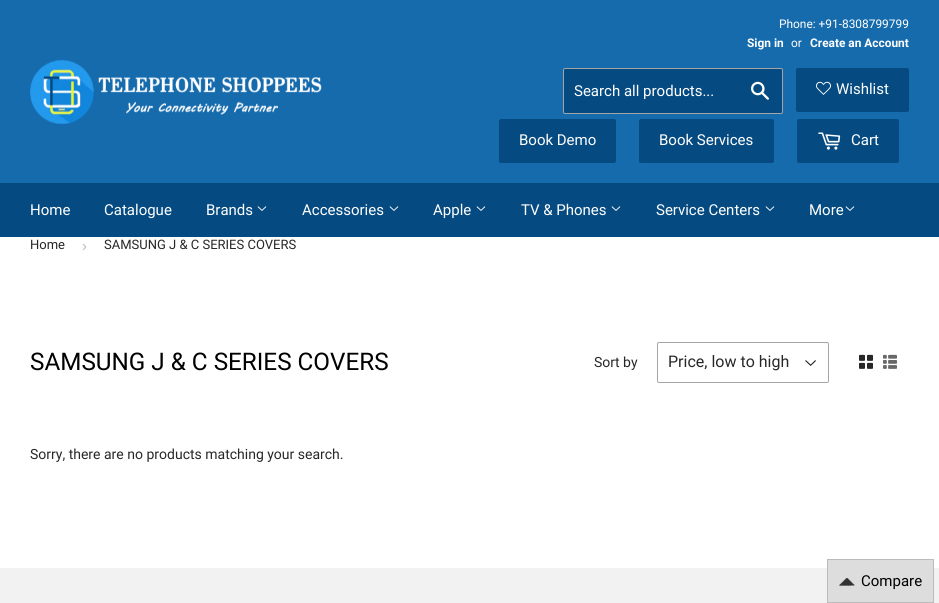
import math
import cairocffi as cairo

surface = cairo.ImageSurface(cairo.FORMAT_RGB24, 939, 603)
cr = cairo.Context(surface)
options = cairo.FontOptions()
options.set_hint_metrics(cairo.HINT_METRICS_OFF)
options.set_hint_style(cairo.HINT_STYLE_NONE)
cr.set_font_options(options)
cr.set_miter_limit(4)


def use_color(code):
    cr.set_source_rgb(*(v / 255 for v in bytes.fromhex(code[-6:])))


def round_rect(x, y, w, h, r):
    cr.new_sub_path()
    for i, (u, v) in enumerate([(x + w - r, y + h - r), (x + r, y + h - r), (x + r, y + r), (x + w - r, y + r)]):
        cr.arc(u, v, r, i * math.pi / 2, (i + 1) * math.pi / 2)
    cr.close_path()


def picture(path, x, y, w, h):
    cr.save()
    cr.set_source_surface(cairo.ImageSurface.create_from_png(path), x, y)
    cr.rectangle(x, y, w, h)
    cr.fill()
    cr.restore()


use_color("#ffffff")
cr.paint()
use_color("#166bad")
cr.rectangle(0, 0, 939, 183)
cr.fill()
picture("img1.png", 30, 59, 292, 65)
cr.select_font_face("Roboto")
cr.set_font_size(11.9)
use_color("#ffffff")
cr.move_to(779, 28)
cr.show_text("Phone: +91-8308799799")
cr.select_font_face("Roboto", cairo.FONT_SLANT_NORMAL, cairo.FONT_WEIGHT_BOLD)
cr.move_to(747, 47)
cr.show_text("Sign in")
cr.select_font_face("Roboto")
cr.move_to(791, 47)
cr.show_text("or")
cr.select_font_face("Roboto", cairo.FONT_SLANT_NORMAL, cairo.FONT_WEIGHT_BOLD)
cr.move_to(810, 47)
cr.show_text("Create an Account")
use_color("#054b81")
round_rect(563.5, 68.5, 219, 45, 1.5)
cr.fill_preserve()
use_color("#a5a5a5")
cr.set_line_width(1)
cr.stroke()
cr.select_font_face("Roboto")
cr.set_font_size(15)
use_color("#ffffff")
cr.move_to(574, 96)
cr.show_text("Search all products...")
picture("img2.png", 751, 81, 18, 19)
use_color("#054b81")
round_rect(796, 68, 113, 44, 2)
cr.fill()
picture("img3.png", 816, 81, 15, 14)
use_color("#ffffff")
cr.move_to(836, 94)
cr.show_text("Wishlist")
use_color("#054b81")
round_rect(499, 119, 117, 44, 2)
cr.fill()
use_color("#ffffff")
cr.move_to(519, 145)
cr.show_text("Book Demo")
use_color("#054b81")
round_rect(639, 119, 135, 44, 2)
cr.fill()
use_color("#ffffff")
cr.move_to(659, 145)
cr.show_text("Book Services")
use_color("#054b81")
round_rect(797, 119, 102, 44, 2)
cr.fill()
picture("img4.png", 818, 132, 23, 18)
use_color("#ffffff")
cr.move_to(851, 145)
cr.show_text("Cart")
use_color("#054b81")
cr.rectangle(0, 183, 939, 54)
cr.fill()
use_color("#ffffff")
cr.move_to(30, 215)
cr.show_text("Home")
cr.move_to(104, 215)
cr.show_text("Catalogue")
cr.move_to(206, 215)
cr.show_text("Brands")
picture("img5.png", 257, 206, 10, 5)
cr.move_to(302, 215)
cr.show_text("Accessories")
picture("img5.png", 389, 206, 10, 5)
cr.move_to(433, 215)
cr.show_text("Apple")
picture("img5.png", 476, 206, 10, 5)
cr.move_to(521, 215)
cr.show_text("TV & Phones")
picture("img5.png", 611, 206, 10, 5)
cr.move_to(656, 215)
cr.show_text("Service Centers")
picture("img5.png", 765, 206, 10, 5)
cr.move_to(809, 215)
cr.show_text("More")
picture("img5.png", 845, 206, 10, 5)
cr.set_font_size(13)
use_color("#282727")
cr.move_to(30, 249)
cr.show_text("Home")
cr.select_font_face("Liberation Sans")
cr.set_font_size(15)
use_color("#bbbbbb")
cr.move_to(82, 251)
cr.show_text("›")
cr.select_font_face("Roboto")
cr.set_font_size(13)
use_color("#282727")
cr.move_to(104, 249)
cr.show_text("SAMSUNG J & C SERIES COVERS")
cr.set_font_size(24.25)
use_color("#000000")
cr.move_to(30, 370)
cr.show_text("SAMSUNG J & C SERIES COVERS")
cr.set_font_size(14)
use_color("#282727")
cr.move_to(594, 367)
cr.show_text("Sort by")
picture("img6.png", 805, 360, 11, 6)
round_rect(657.5, 342.5, 171, 40, 1.5)
use_color("#a5a5a5")
cr.stroke()
cr.set_font_size(16)
use_color("#282727")
cr.move_to(668, 367)
cr.show_text("Price, low to high")
picture("img7.png", 859, 354, 14, 15)
picture("img8.png", 883, 354, 14, 15)
cr.set_font_size(14)
cr.move_to(30, 459)
cr.show_text("Sorry, there are no products matching your search.")
use_color("#f2f2f2")
cr.rectangle(0, 568, 939, 35)
cr.fill()
use_color("#dddddd")
cr.rectangle(827.5, 559.5, 106, 43)
cr.fill_preserve()
use_color("#bbbbbb")
cr.stroke()
picture("img9.png", 839, 578, 16, 8)
cr.set_font_size(15)
use_color("#000000")
cr.move_to(861, 586)
cr.show_text("Compare")
surface.write_to_png("result.png")
